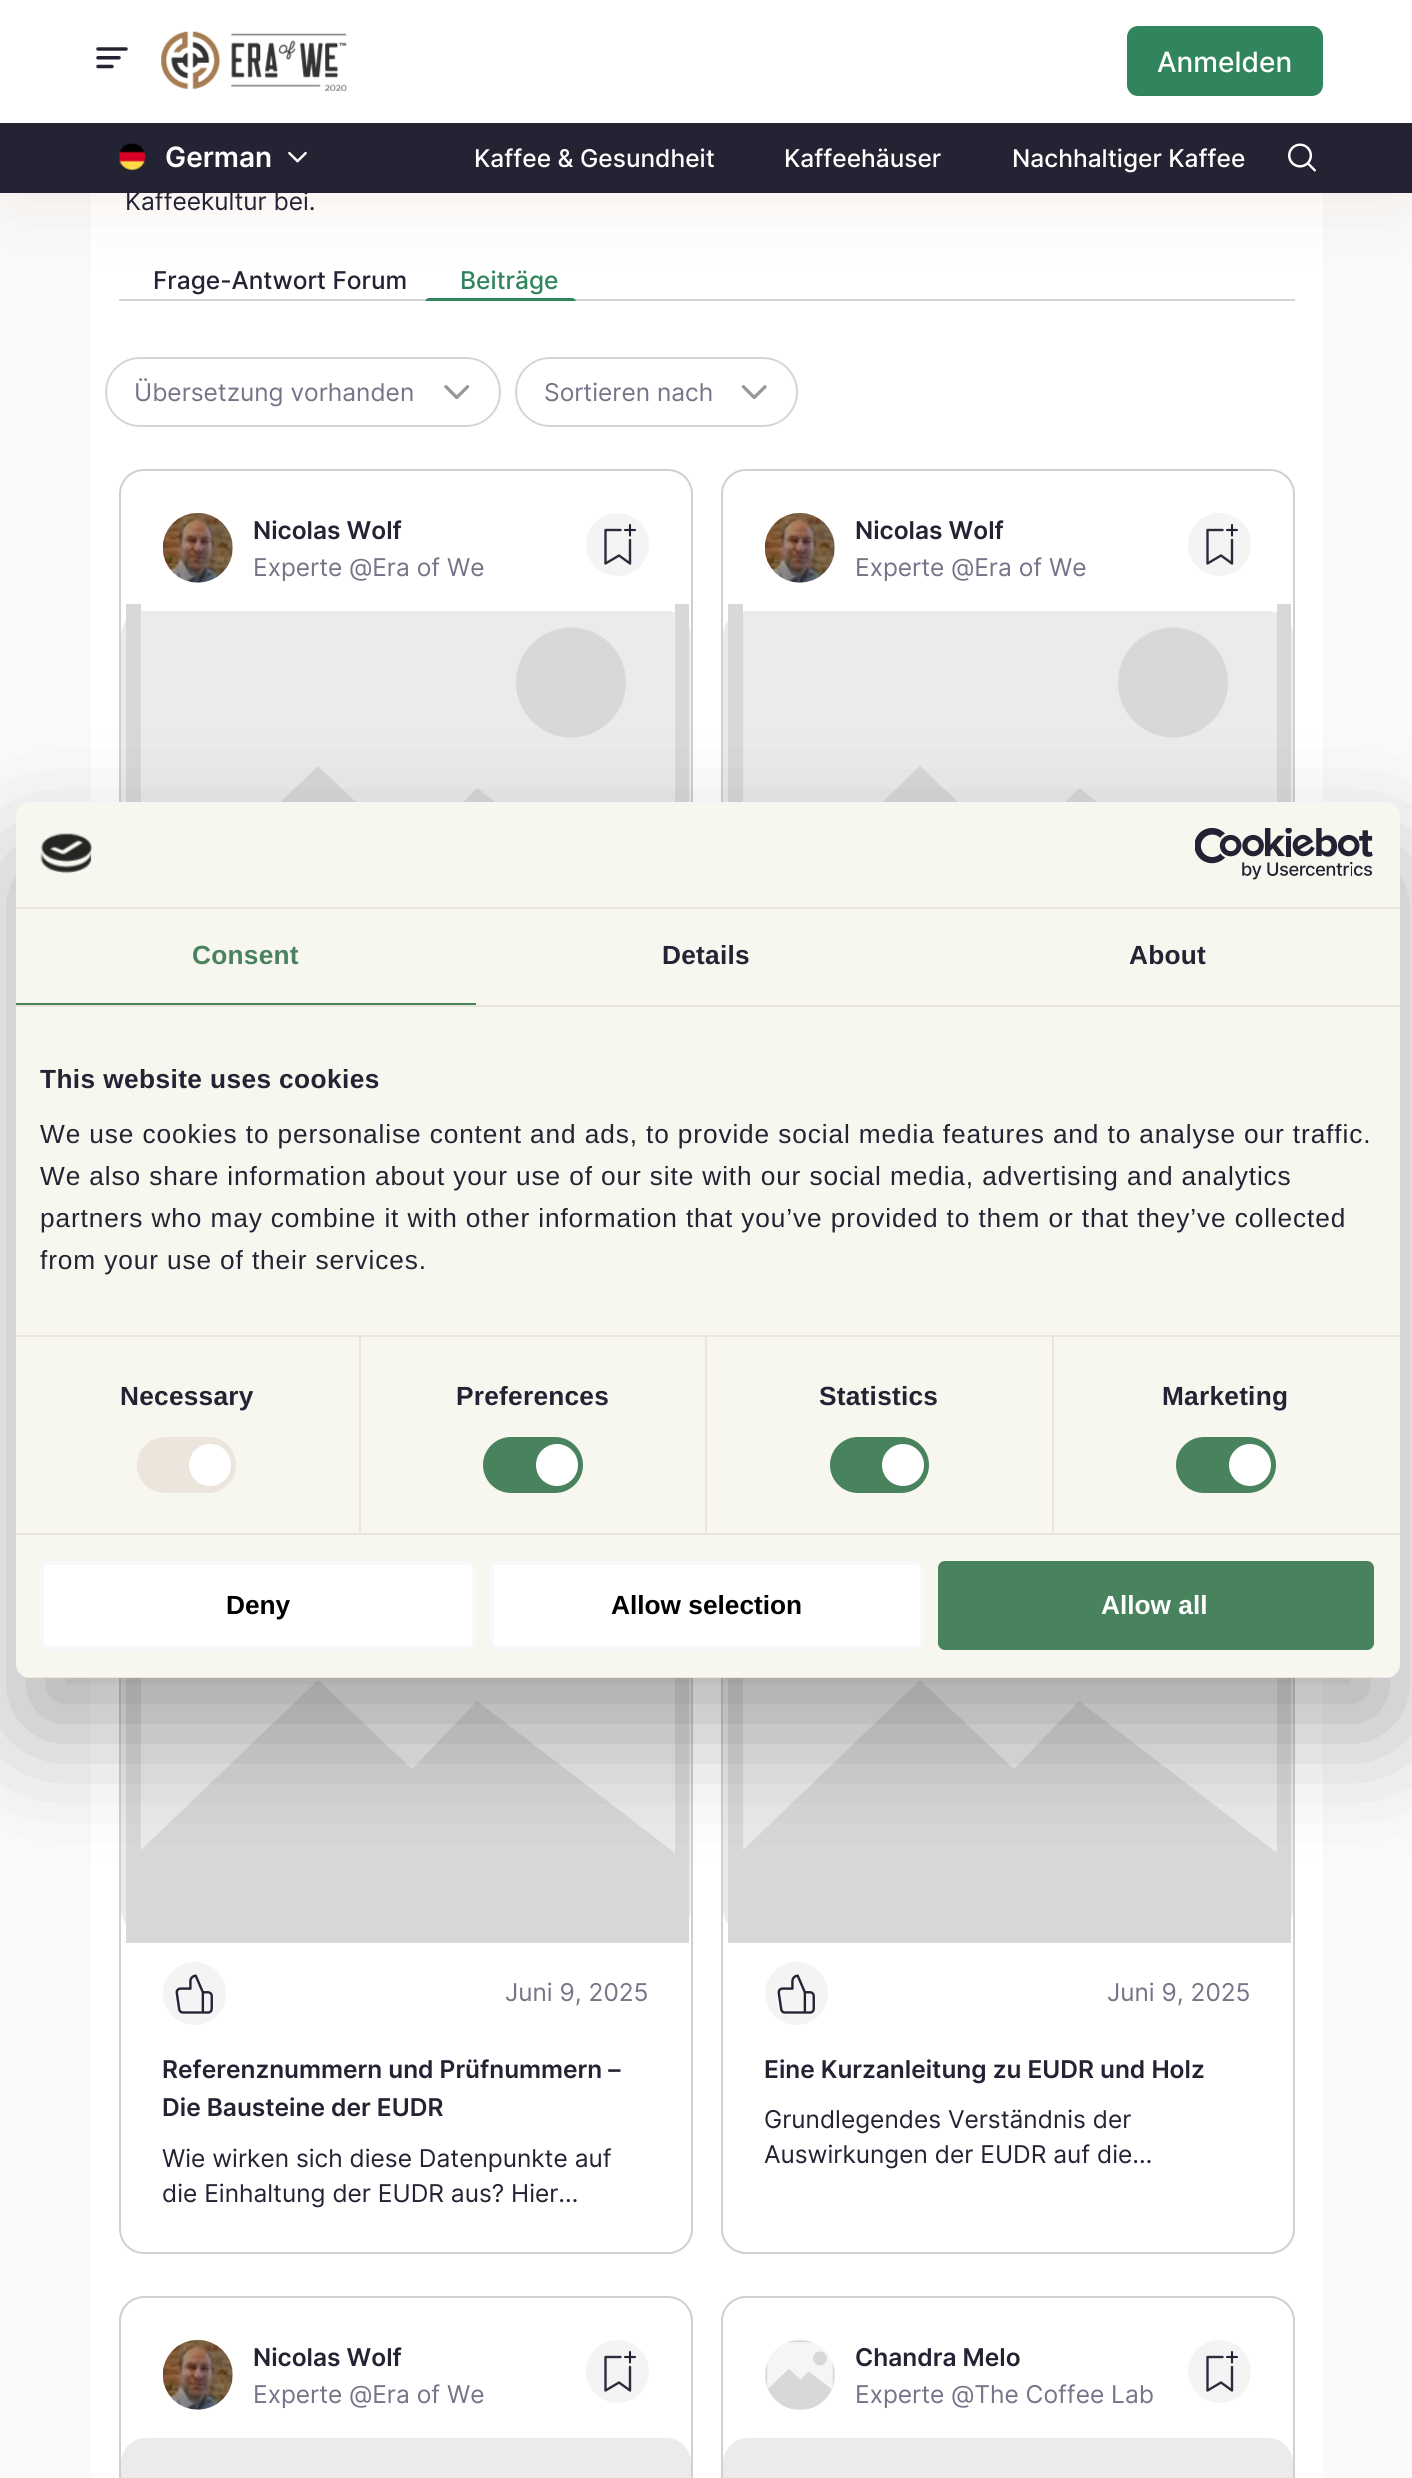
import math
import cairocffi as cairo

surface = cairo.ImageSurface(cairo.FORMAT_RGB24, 1412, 2478)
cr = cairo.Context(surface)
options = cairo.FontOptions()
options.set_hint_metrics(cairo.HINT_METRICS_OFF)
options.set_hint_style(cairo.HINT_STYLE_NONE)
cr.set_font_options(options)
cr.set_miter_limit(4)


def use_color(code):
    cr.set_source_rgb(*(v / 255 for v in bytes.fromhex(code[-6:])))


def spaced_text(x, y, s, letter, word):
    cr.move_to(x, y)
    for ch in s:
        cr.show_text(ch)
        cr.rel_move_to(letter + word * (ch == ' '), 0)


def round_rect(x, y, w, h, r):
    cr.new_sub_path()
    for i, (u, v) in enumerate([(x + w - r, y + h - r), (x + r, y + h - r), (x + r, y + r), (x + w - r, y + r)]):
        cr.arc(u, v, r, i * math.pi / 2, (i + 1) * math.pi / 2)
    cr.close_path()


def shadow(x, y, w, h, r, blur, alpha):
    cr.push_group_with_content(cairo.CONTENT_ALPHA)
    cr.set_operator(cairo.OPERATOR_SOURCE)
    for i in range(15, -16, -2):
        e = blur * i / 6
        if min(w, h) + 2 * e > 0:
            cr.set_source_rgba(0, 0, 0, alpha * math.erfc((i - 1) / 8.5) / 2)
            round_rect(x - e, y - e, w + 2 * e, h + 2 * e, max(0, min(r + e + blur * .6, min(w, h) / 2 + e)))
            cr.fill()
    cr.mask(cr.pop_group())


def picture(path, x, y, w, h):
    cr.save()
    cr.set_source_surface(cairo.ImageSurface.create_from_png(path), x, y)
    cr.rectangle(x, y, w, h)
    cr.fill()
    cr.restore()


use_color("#fafafa")
cr.paint()
use_color("#ffffff")
cr.rectangle(91, 193, 1232, 2285)
cr.fill()
use_color("#d6d6d6")
cr.rectangle(119, 299, 1176, 2)
cr.fill()
use_color("#30855c")
cr.new_path()
cr.move_to(429, 298)
cr.line_to(572, 298)
cr.curve_to(574, 298, 576, 300, 576, 302)
cr.line_to(576, 301)
cr.line_to(425, 301)
cr.line_to(425, 302)
cr.curve_to(425, 300, 427, 298, 429, 298)
cr.close_path()
cr.fill()
use_color("#8f330b")
shadow(18, 39, 1377, 157, 0, 38.5, 0.1)
use_color("#ffffff")
cr.rectangle(0, 0, 1412, 123)
cr.fill()
picture("img1.png", 96, 47, 32, 22)
picture("img2.png", 161, 31, 186, 60)
use_color("#30855c")
round_rect(1128, 27, 194, 68, 10)
cr.fill_preserve()
cr.stroke()
cr.select_font_face("Inter Medium")
cr.set_font_size(28)
use_color("#ffffff")
cr.move_to(1157, 72)
cr.show_text("Anmelden")
use_color("#232334")
cr.rectangle(0, 123, 1412, 70)
cr.fill()
picture("img3.png", 119, 143, 27, 27)
cr.select_font_face("Inter SemiBold")
use_color("#ffffff")
cr.move_to(165, 167)
cr.show_text("German")
picture("img4.png", 288, 151, 19, 12)
cr.select_font_face("Inter Medium")
cr.set_font_size(24.5)
cr.move_to(474, 167)
cr.show_text("Kaffee & Gesundheit")
cr.move_to(784, 167)
cr.show_text("Kaffeehäuser")
cr.move_to(1012, 167)
cr.show_text("Nachhaltiger Kaffee")
picture("img5.png", 1288, 143, 28, 29)
cr.select_font_face("Inter")
use_color("#232334")
cr.move_to(125, 210)
cr.show_text("Kaffeekultur bei.")
cr.select_font_face("Inter Medium")
cr.move_to(153, 289)
cr.show_text("Frage-Antwort Forum")
use_color("#30855c")
cr.move_to(460, 289)
cr.show_text("Beiträge")
round_rect(106, 358, 394, 68, 34)
use_color("#d6d6d6")
cr.stroke()
cr.select_font_face("Inter")
use_color("#747588")
cr.move_to(134, 401)
cr.show_text("Übersetzung vorhanden")
picture("img6.png", 444, 385, 26, 15)
round_rect(516, 358, 281, 68, 34)
use_color("#d6d6d6")
cr.stroke()
use_color("#747588")
cr.move_to(544, 401)
cr.show_text("Sortieren nach")
picture("img7.png", 741, 385, 26, 15)
round_rect(120, 470, 572, 870, 24)
use_color("#d0d0d0")
cr.stroke()
use_color("#f5f5f5")
cr.arc(198, 548, 35, 0, 2 * math.pi)
cr.fill()
picture("img8.png", 162, 512, 71, 71)
cr.select_font_face("Inter SemiBold")
use_color("#232334")
cr.move_to(253, 539)
cr.show_text("Nicolas Wolf")
cr.select_font_face("Inter")
use_color("#747588")
cr.move_to(253, 576)
cr.show_text("Experte @Era of We")
use_color("#f4f4f5")
cr.new_path()
cr.arc(617.5, 544.5, 31.5, 0, 2 * math.pi)
cr.fill()
cr.new_path()
cr.move_to(630, 540)
cr.line_to(630, 563.5)
cr.line_to(619, 555.5)
cr.line_to(605.5, 563.5)
cr.line_to(605.5, 530)
cr.line_to(620.5, 530)
use_color("#2c2c3c")
cr.set_line_width(2.4)
cr.set_line_cap(cairo.LINE_CAP_ROUND)
cr.set_line_join(cairo.LINE_JOIN_ROUND)
cr.stroke()
cr.new_path()
cr.move_to(630, 525)
cr.line_to(630, 535.5)
cr.move_to(625, 530)
cr.line_to(635, 530)
use_color("#232334")
cr.set_line_width(2.1)
cr.stroke()
use_color("#ebebeb")
round_rect(121, 611, 570, 409, 25)
cr.fill()
cr.save()
cr.rectangle(121, 604, 570, 425)
cr.clip()
use_color("#d8d8d8")
cr.new_path()
cr.move_to(641, 536)
cr.line_to(175, 536)
cr.curve_to(148, 536, 126, 557, 126, 584)
cr.line_to(126, 1050)
cr.curve_to(126, 1077, 148, 1099, 175, 1099)
cr.line_to(641, 1099)
cr.curve_to(668, 1099, 689, 1077, 689, 1050)
cr.line_to(689, 584)
cr.curve_to(689, 557, 668, 536, 641, 536)
cr.close_path()
cr.move_to(675, 939)
cr.line_to(477, 788)
cr.line_to(412, 855)
cr.line_to(318, 766)
cr.line_to(141, 936)
cr.line_to(141, 584)
cr.curve_to(141, 565, 156, 550, 175, 550)
cr.line_to(641, 550)
cr.curve_to(660, 550, 675, 565, 675, 584)
cr.close_path()
cr.fill()
cr.restore()
use_color("#d8d8d8")
cr.arc(571, 682.5, 55, 0, 2 * math.pi)
cr.fill()
round_rect(722, 470, 572, 870, 24)
use_color("#d0d0d0")
cr.set_line_width(2)
cr.set_line_cap(cairo.LINE_CAP_BUTT)
cr.set_line_join(cairo.LINE_JOIN_MITER)
cr.stroke()
use_color("#f5f5f5")
cr.arc(800, 548, 35, 0, 2 * math.pi)
cr.fill()
picture("img9.png", 764, 512, 71, 71)
cr.select_font_face("Inter SemiBold")
use_color("#232334")
cr.move_to(855, 539)
cr.show_text("Nicolas Wolf")
cr.select_font_face("Inter")
use_color("#747588")
cr.move_to(855, 576)
cr.show_text("Experte @Era of We")
use_color("#f4f4f5")
cr.new_path()
cr.arc(1219.5, 544.5, 31.5, 0, 2 * math.pi)
cr.fill()
cr.new_path()
cr.move_to(1232, 540)
cr.line_to(1232, 563.5)
cr.line_to(1221, 555.5)
cr.line_to(1207.5, 563.5)
cr.line_to(1207.5, 530)
cr.line_to(1222.5, 530)
use_color("#2c2c3c")
cr.set_line_width(2.4)
cr.set_line_cap(cairo.LINE_CAP_ROUND)
cr.set_line_join(cairo.LINE_JOIN_ROUND)
cr.stroke()
cr.new_path()
cr.move_to(1232, 525)
cr.line_to(1232, 535.5)
cr.move_to(1227, 530)
cr.line_to(1237, 530)
use_color("#232334")
cr.set_line_width(2.1)
cr.stroke()
use_color("#ebebeb")
round_rect(723, 611, 570, 409, 25)
cr.fill()
cr.save()
cr.rectangle(723, 604, 570, 425)
cr.clip()
use_color("#d8d8d8")
cr.new_path()
cr.move_to(1243, 536)
cr.line_to(777, 536)
cr.curve_to(750, 536, 728, 557, 728, 584)
cr.line_to(728, 1050)
cr.curve_to(728, 1077, 750, 1099, 777, 1099)
cr.line_to(1243, 1099)
cr.curve_to(1270, 1099, 1291, 1077, 1291, 1050)
cr.line_to(1291, 584)
cr.curve_to(1291, 557, 1270, 536, 1243, 536)
cr.close_path()
cr.move_to(1277, 939)
cr.line_to(1079, 788)
cr.line_to(1014, 855)
cr.line_to(920, 766)
cr.line_to(743, 936)
cr.line_to(743, 584)
cr.curve_to(743, 565, 758, 550, 777, 550)
cr.line_to(1243, 550)
cr.curve_to(1262, 550, 1277, 565, 1277, 584)
cr.close_path()
cr.fill()
cr.restore()
use_color("#d8d8d8")
cr.arc(1173, 682.5, 55, 0, 2 * math.pi)
cr.fill()
round_rect(120, 1384, 572, 869, 24)
use_color("#d0d0d0")
cr.set_line_width(2)
cr.set_line_cap(cairo.LINE_CAP_BUTT)
cr.set_line_join(cairo.LINE_JOIN_MITER)
cr.stroke()
use_color("#ebebeb")
round_rect(121, 1524, 570, 410, 25)
cr.fill()
cr.save()
cr.rectangle(121, 1517, 570, 426)
cr.clip()
use_color("#d8d8d8")
cr.new_path()
cr.move_to(641, 1449)
cr.line_to(175, 1449)
cr.curve_to(148, 1449, 126, 1471, 126, 1498)
cr.line_to(126, 1964)
cr.curve_to(126, 1991, 148, 2012, 175, 2012)
cr.line_to(641, 2012)
cr.curve_to(668, 2012, 689, 1991, 689, 1964)
cr.line_to(689, 1498)
cr.curve_to(689, 1471, 668, 1449, 641, 1449)
cr.close_path()
cr.move_to(675, 1853)
cr.line_to(477, 1701)
cr.line_to(412, 1769)
cr.line_to(318, 1680)
cr.line_to(141, 1850)
cr.line_to(141, 1498)
cr.curve_to(141, 1479, 156, 1464, 175, 1464)
cr.line_to(641, 1464)
cr.curve_to(660, 1464, 675, 1479, 675, 1498)
cr.close_path()
cr.fill()
cr.restore()
use_color("#f4f4f5")
cr.arc(194.5, 1993.5, 31.5, 0, 2 * math.pi)
cr.fill()
picture("img10.png", 175, 1974, 38, 40)
use_color("#747588")
cr.move_to(505, 2001)
cr.show_text("Juni 9, 2025")
cr.select_font_face("Inter SemiBold")
use_color("#232334")
cr.move_to(162, 2078)
cr.show_text("Referenznummern und Prüfnummern –")
cr.move_to(162, 2116)
cr.show_text("Die Bausteine der EUDR")
cr.select_font_face("Inter")
cr.move_to(162, 2167)
cr.show_text("Wie wirken sich diese Datenpunkte auf")
cr.move_to(162, 2202)
cr.show_text("die Einhaltung der EUDR aus? Hier…")
round_rect(722, 1384, 572, 869, 24)
use_color("#d0d0d0")
cr.stroke()
use_color("#ebebeb")
round_rect(723, 1524, 570, 410, 25)
cr.fill()
cr.save()
cr.rectangle(723, 1517, 570, 426)
cr.clip()
use_color("#d8d8d8")
cr.new_path()
cr.move_to(1243, 1449)
cr.line_to(777, 1449)
cr.curve_to(750, 1449, 728, 1471, 728, 1498)
cr.line_to(728, 1964)
cr.curve_to(728, 1991, 750, 2012, 777, 2012)
cr.line_to(1243, 2012)
cr.curve_to(1270, 2012, 1291, 1991, 1291, 1964)
cr.line_to(1291, 1498)
cr.curve_to(1291, 1471, 1270, 1449, 1243, 1449)
cr.close_path()
cr.move_to(1277, 1853)
cr.line_to(1079, 1701)
cr.line_to(1014, 1769)
cr.line_to(920, 1680)
cr.line_to(743, 1850)
cr.line_to(743, 1498)
cr.curve_to(743, 1479, 758, 1464, 777, 1464)
cr.line_to(1243, 1464)
cr.curve_to(1262, 1464, 1277, 1479, 1277, 1498)
cr.close_path()
cr.fill()
cr.restore()
use_color("#f4f4f5")
cr.arc(796.5, 1993.5, 31.5, 0, 2 * math.pi)
cr.fill()
picture("img10.png", 777, 1974, 38, 40)
use_color("#747588")
cr.move_to(1107, 2001)
cr.show_text("Juni 9, 2025")
cr.select_font_face("Inter SemiBold")
use_color("#232334")
cr.move_to(764, 2078)
cr.show_text("Eine Kurzanleitung zu EUDR und Holz")
cr.select_font_face("Inter")
cr.move_to(764, 2128)
cr.show_text("Grundlegendes Verständnis der")
cr.move_to(764, 2163)
cr.show_text("Auswirkungen der EUDR auf die…")
round_rect(120, 2297, 572, 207, 24)
use_color("#d0d0d0")
cr.stroke()
use_color("#f5f5f5")
cr.arc(198, 2375, 35, 0, 2 * math.pi)
cr.fill()
picture("img8.png", 162, 2339, 71, 71)
cr.select_font_face("Inter SemiBold")
use_color("#232334")
cr.move_to(253, 2366)
cr.show_text("Nicolas Wolf")
cr.select_font_face("Inter")
use_color("#747588")
cr.move_to(253, 2403)
cr.show_text("Experte @Era of We")
use_color("#f4f4f5")
cr.new_path()
cr.arc(617.5, 2371.5, 31.5, 0, 2 * math.pi)
cr.fill()
cr.new_path()
cr.move_to(630, 2367)
cr.line_to(630, 2390.5)
cr.line_to(619, 2382.5)
cr.line_to(605.5, 2390.5)
cr.line_to(605.5, 2357)
cr.line_to(620.5, 2357)
use_color("#2c2c3c")
cr.set_line_width(2.4)
cr.set_line_cap(cairo.LINE_CAP_ROUND)
cr.set_line_join(cairo.LINE_JOIN_ROUND)
cr.stroke()
cr.new_path()
cr.move_to(630, 2352)
cr.line_to(630, 2362.5)
cr.move_to(625, 2357)
cr.line_to(635, 2357)
use_color("#232334")
cr.set_line_width(2.1)
cr.stroke()
use_color("#ebebeb")
round_rect(121, 2438, 570, 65, 25)
cr.fill()
round_rect(722, 2297, 572, 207, 24)
use_color("#d0d0d0")
cr.set_line_width(2)
cr.set_line_cap(cairo.LINE_CAP_BUTT)
cr.set_line_join(cairo.LINE_JOIN_MITER)
cr.stroke()
use_color("#f5f5f5")
cr.arc(800, 2375, 35, 0, 2 * math.pi)
cr.fill()
picture("img11.png", 765, 2340, 70, 70)
cr.select_font_face("Inter SemiBold")
use_color("#232334")
cr.move_to(855, 2366)
cr.show_text("Chandra Melo")
cr.select_font_face("Inter")
use_color("#747588")
cr.move_to(855, 2403)
cr.show_text("Experte @The Coffee Lab")
use_color("#f4f4f5")
cr.new_path()
cr.arc(1219.5, 2371.5, 31.5, 0, 2 * math.pi)
cr.fill()
cr.new_path()
cr.move_to(1232, 2367)
cr.line_to(1232, 2390.5)
cr.line_to(1221, 2382.5)
cr.line_to(1207.5, 2390.5)
cr.line_to(1207.5, 2357)
cr.line_to(1222.5, 2357)
use_color("#2c2c3c")
cr.set_line_width(2.4)
cr.set_line_cap(cairo.LINE_CAP_ROUND)
cr.set_line_join(cairo.LINE_JOIN_ROUND)
cr.stroke()
cr.new_path()
cr.move_to(1232, 2352)
cr.line_to(1232, 2362.5)
cr.move_to(1227, 2357)
cr.line_to(1237, 2357)
use_color("#232334")
cr.set_line_width(2.1)
cr.stroke()
use_color("#ebebeb")
round_rect(723, 2438, 570, 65, 25)
cr.fill()
use_color("#000000")
shadow(16, 858, 1384, 876, 14, 59.5, 0.3)
use_color("#f7f6ef")
round_rect(16, 802, 1384, 876, 14)
cr.fill()
use_color("#ebe5dc")
cr.rectangle(16, 907, 1384, 2)
cr.fill()
picture("img12.png", 40, 833, 53, 41)
picture("img13.png", 1195, 828, 178, 52)
cr.rectangle(16, 1005, 1384, 2)
cr.fill()
use_color("#49835e")
cr.rectangle(16, 1003, 460, 2)
cr.fill()
cr.select_font_face("Liberation Sans", cairo.FONT_SLANT_NORMAL, cairo.FONT_WEIGHT_BOLD)
cr.set_font_size(26.25)
spaced_text(192, 964, "Consent", 0.25, 0)
use_color("#232334")
spaced_text(662, 964, "Details", 0.25, 0)
spaced_text(1129, 964, "About", 0.25, 0)
use_color("#ebe5dc")
cr.rectangle(16, 1335, 1384, 2)
cr.fill()
use_color("#232334")
spaced_text(40, 1088, "This website uses cookies", 0.4, 0)
cr.select_font_face("Liberation Sans")
spaced_text(40, 1143, "We use cookies to personalise content and ads, to provide social media features and to analyse our traffic.", 0.88, 0)
spaced_text(40, 1185, "We also share information about your use of our site with our social media, advertising and analytics", 0.88, 0)
spaced_text(40, 1227, "partners who may combine it with other information that you’ve provided to them or that they’ve collected", 0.88, 0)
spaced_text(40, 1269, "from your use of their services.", 0.88, 0)
use_color("#ebe5dc")
cr.rectangle(16, 1533, 1384, 2)
cr.fill()
cr.rectangle(359, 1337, 2, 196)
cr.fill()
cr.select_font_face("Liberation Sans", cairo.FONT_SLANT_NORMAL, cairo.FONT_WEIGHT_BOLD)
use_color("#232334")
spaced_text(120, 1405, "Necessary", 0.25, 0)
use_color("#ebe5dc")
round_rect(137, 1437, 99, 56, 28)
cr.fill()
use_color("#ffffff")
cr.arc(210, 1465, 21, 0, 2 * math.pi)
cr.fill()
use_color("#ebe5dc")
cr.rectangle(705, 1337, 2, 196)
cr.fill()
use_color("#232334")
spaced_text(456, 1405, "Preferences", 0.25, 0)
use_color("#49835e")
round_rect(483, 1437, 100, 56, 28)
cr.fill()
use_color("#ffffff")
cr.arc(557, 1465, 21, 0, 2 * math.pi)
cr.fill()
use_color("#ebe5dc")
cr.rectangle(1052, 1337, 2, 196)
cr.fill()
use_color("#232334")
spaced_text(819, 1405, "Statistics", 0.25, 0)
use_color("#49835e")
round_rect(830, 1437, 99, 56, 28)
cr.fill()
use_color("#ffffff")
cr.arc(903, 1465, 21, 0, 2 * math.pi)
cr.fill()
use_color("#232334")
spaced_text(1162, 1405, "Marketing", 0.25, 0)
use_color("#49835e")
round_rect(1176, 1437, 100, 56, 28)
cr.fill()
use_color("#ffffff")
cr.arc(1250, 1465, 21, 0, 2 * math.pi)
cr.fill()
cr.save()
round_rect(16, 802, 1384, 876, 14)
cr.clip()
use_color("#ebe5dc")
cr.rectangle(25, 1677, 1366, 1)
cr.fill()
cr.restore()
round_rect(42, 1563, 432, 85, 5)
cr.fill_preserve()
use_color("#f8f8f8")
cr.set_line_width(4)
cr.set_line_cap(cairo.LINE_CAP_BUTT)
cr.set_line_join(cairo.LINE_JOIN_MITER)
cr.stroke()
use_color("#000000")
cr.move_to(226, 1614)
cr.show_text("Deny")
use_color("#ffffff")
round_rect(492, 1563, 430, 85, 5)
cr.fill_preserve()
use_color("#f8f8f8")
cr.stroke()
use_color("#000000")
cr.move_to(611, 1614)
cr.show_text("Allow selection")
use_color("#49835e")
round_rect(940, 1563, 432, 85, 5)
cr.fill_preserve()
cr.stroke()
use_color("#ffffff")
cr.move_to(1101, 1614)
cr.show_text("Allow all")
surface.write_to_png("result.png")
